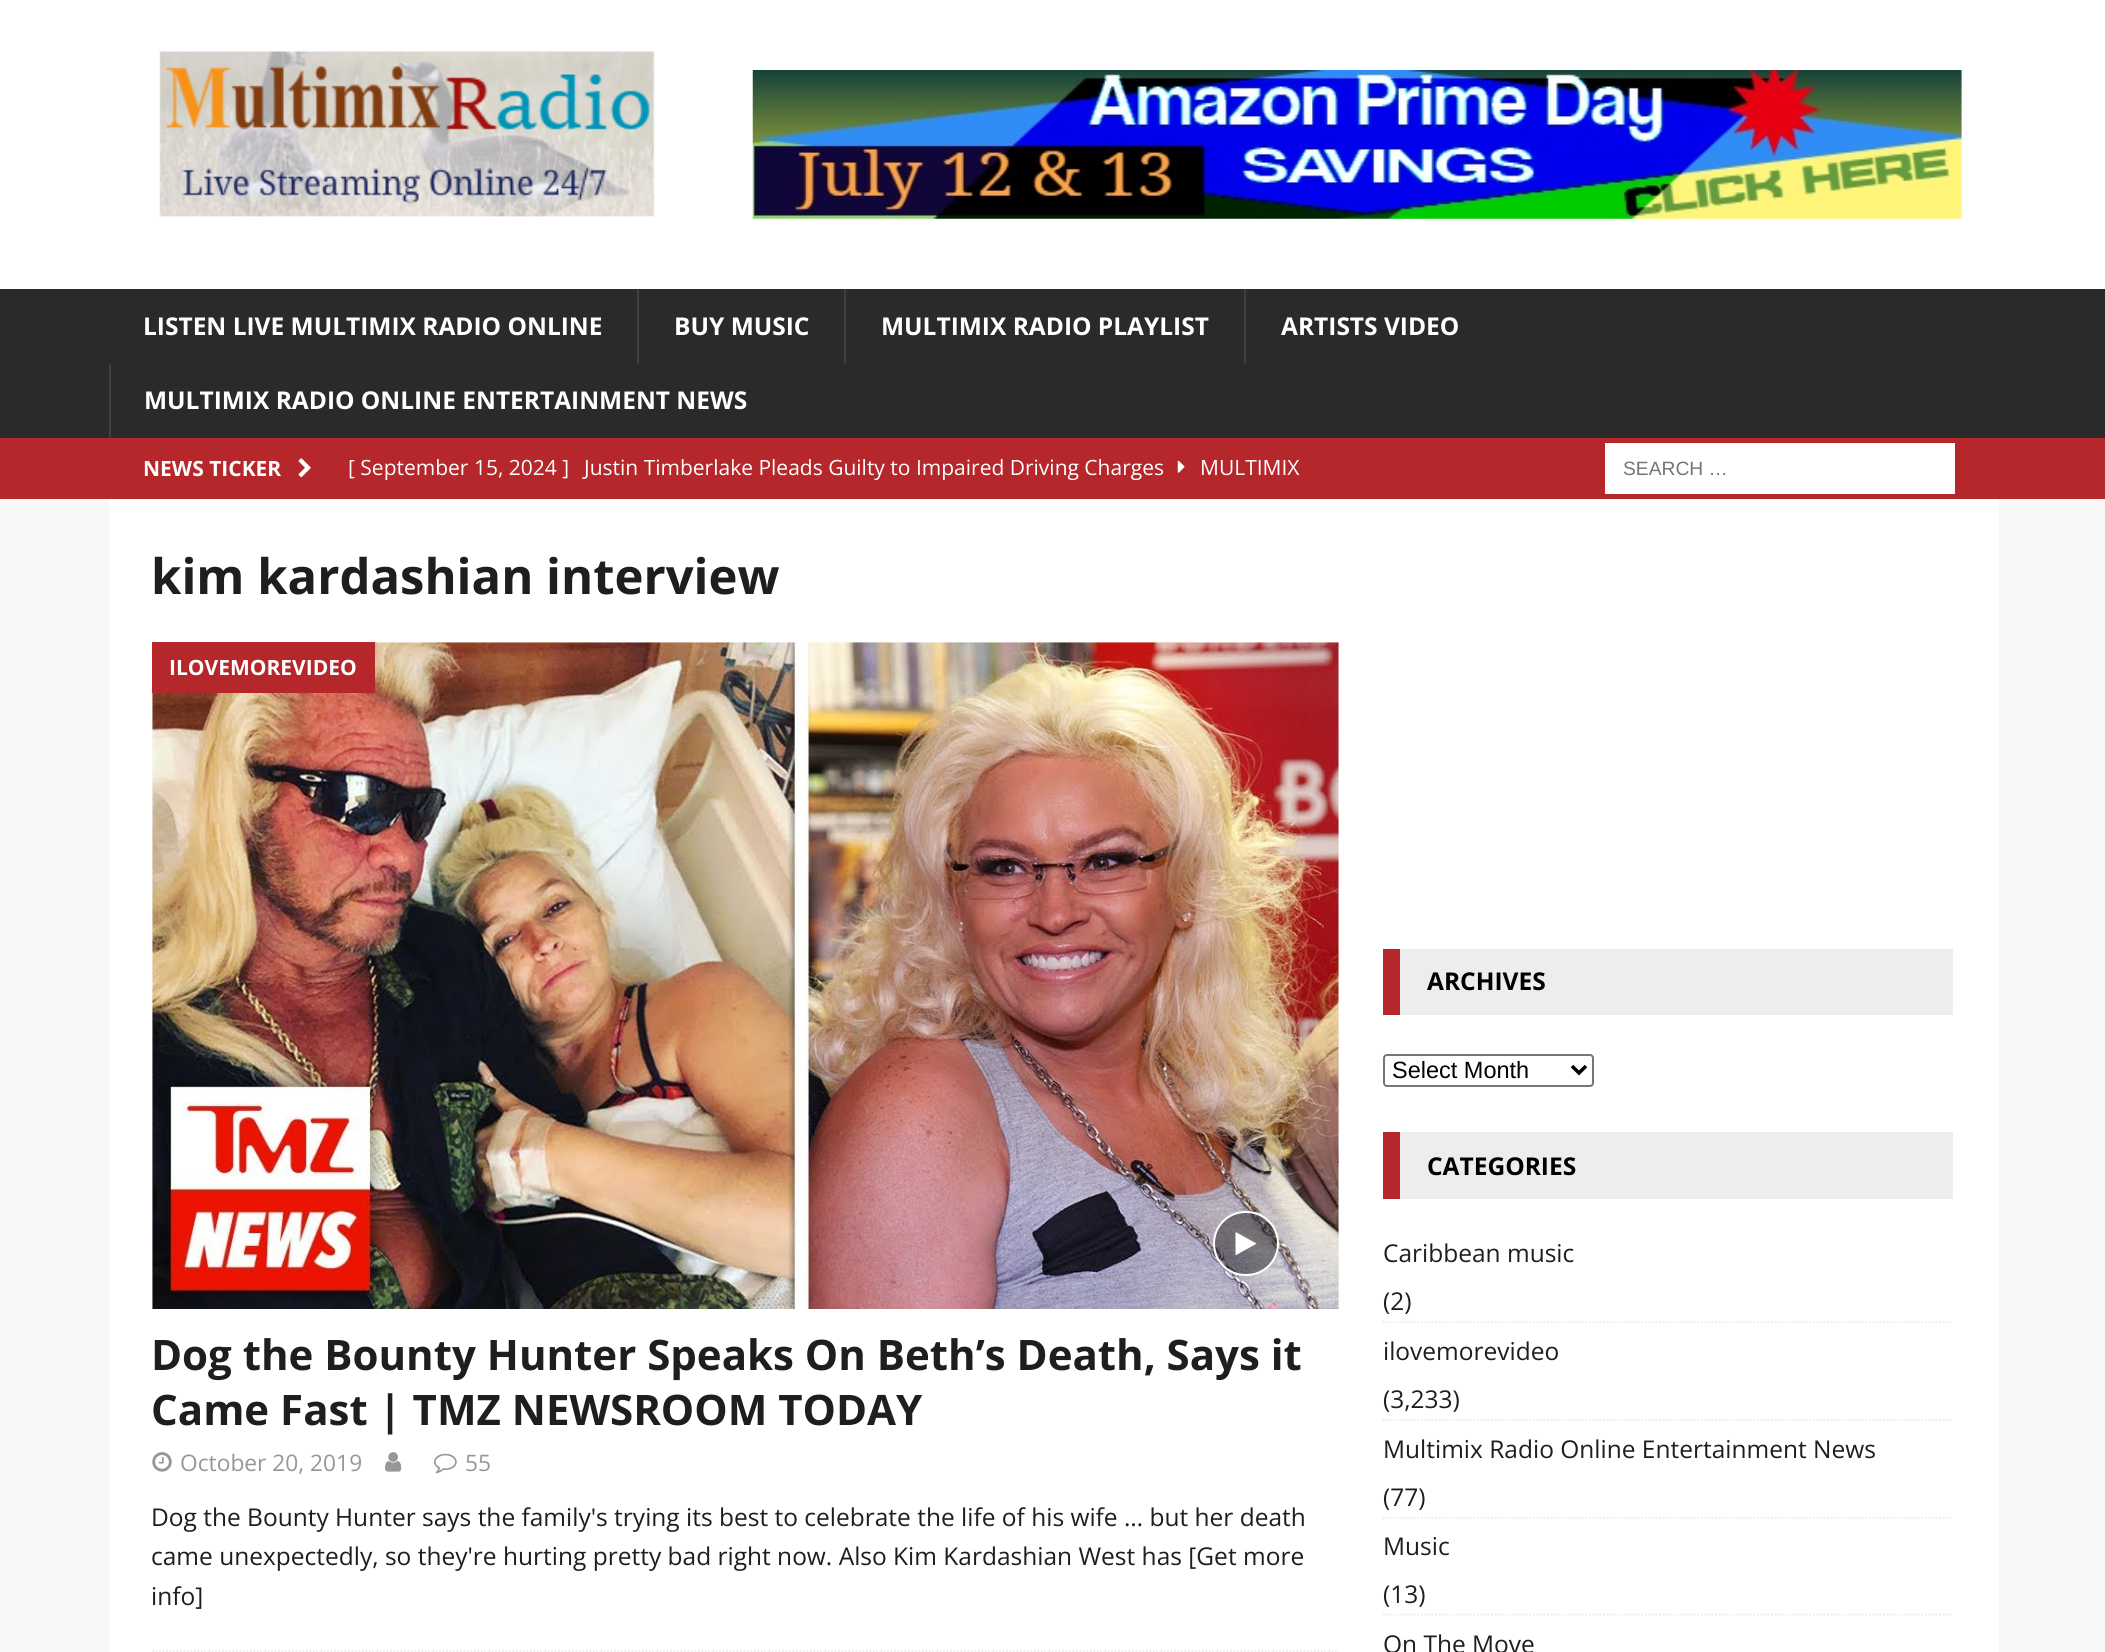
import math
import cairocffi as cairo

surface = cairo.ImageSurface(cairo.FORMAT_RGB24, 2105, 1652)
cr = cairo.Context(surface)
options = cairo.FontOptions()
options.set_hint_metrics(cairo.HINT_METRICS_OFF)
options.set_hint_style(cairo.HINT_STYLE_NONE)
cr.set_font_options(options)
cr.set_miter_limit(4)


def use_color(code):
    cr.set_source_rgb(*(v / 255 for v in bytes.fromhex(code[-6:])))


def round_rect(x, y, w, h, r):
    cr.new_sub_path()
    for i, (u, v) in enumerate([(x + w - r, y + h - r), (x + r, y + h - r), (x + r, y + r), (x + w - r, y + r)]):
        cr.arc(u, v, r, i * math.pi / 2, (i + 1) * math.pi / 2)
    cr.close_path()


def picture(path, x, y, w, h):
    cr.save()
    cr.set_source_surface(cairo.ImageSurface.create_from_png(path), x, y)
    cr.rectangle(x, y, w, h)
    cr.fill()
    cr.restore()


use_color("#f7f7f7")
cr.paint()
use_color("#ffffff")
cr.rectangle(0, 0, 2105, 289)
cr.fill()
picture("img1.png", 159, 51, 496, 166)
picture("img2.png", 752, 70, 1210, 149)
use_color("#2a2a2a")
cr.rectangle(0, 289, 2105, 149)
cr.fill()
cr.select_font_face("Open Sans", cairo.FONT_SLANT_NORMAL, cairo.FONT_WEIGHT_BOLD)
cr.set_font_size(24.5)
use_color("#ffffff")
cr.move_to(143, 335)
cr.show_text("LISTEN LIVE MULTIMIX RADIO ONLINE")
use_color("#3f3f3f")
cr.rectangle(637, 289, 2, 75)
cr.fill()
use_color("#ffffff")
cr.move_to(674, 335)
cr.show_text("BUY MUSIC")
use_color("#3f3f3f")
cr.rectangle(844, 289, 2, 75)
cr.fill()
use_color("#ffffff")
cr.move_to(881, 335)
cr.show_text("MULTIMIX RADIO PLAYLIST")
use_color("#3f3f3f")
cr.rectangle(1244, 289, 2, 75)
cr.fill()
use_color("#ffffff")
cr.move_to(1281, 335)
cr.show_text("ARTISTS VIDEO")
use_color("#3f3f3f")
cr.rectangle(109, 364, 2, 74)
cr.fill()
use_color("#ffffff")
cr.move_to(144, 409)
cr.show_text("MULTIMIX RADIO ONLINE ENTERTAINMENT NEWS")
use_color("#b6272b")
cr.rectangle(0, 438, 2105, 61)
cr.fill()
cr.set_font_size(21)
use_color("#ffffff")
cr.move_to(143, 476)
cr.show_text("NEWS TICKER")
picture("img3.png", 298, 458, 13, 20)
cr.select_font_face("Open Sans")
cr.move_to(348, 475)
cr.show_text("[ September 15, 2024 ]")
cr.move_to(584, 475)
cr.show_text("Justin Timberlake Pleads Guilty to Impaired Driving Charges")
picture("img4.png", 1177, 460, 8, 13)
cr.move_to(1200, 475)
cr.show_text("MULTIMIX")
cr.rectangle(1605, 443, 350, 51)
cr.fill()
cr.select_font_face("Liberation Sans")
cr.set_font_size(19.25)
use_color("#757575")
cr.move_to(1623, 475)
cr.show_text("SEARCH …")
use_color("#ffffff")
cr.rectangle(109, 499, 1890, 1153)
cr.fill()
cr.select_font_face("Open Sans", cairo.FONT_SLANT_NORMAL, cairo.FONT_WEIGHT_BOLD)
cr.set_font_size(49)
use_color("#1f1e1e")
cr.move_to(151, 594)
cr.show_text("kim kardashian interview")
cr.new_path()
cr.move_to(152, 1651)
cr.line_to(1339, 1651)
use_color("#ebebeb")
cr.set_line_width(1.8)
cr.set_dash([1.75, 1.75])
cr.stroke()
picture("img5.png", 152, 642, 1187, 667)
cr.set_source_rgba(0, 0, 0, 0.4)
round_rect(1214, 1212, 64, 63, 31.5)
cr.fill_preserve()
use_color("#ffffff")
cr.set_line_width(2)
cr.set_dash([])
cr.stroke()
picture("img6.png", 1235, 1232, 22, 23)
use_color("#b6272b")
cr.rectangle(152, 642, 223, 51)
cr.fill()
cr.set_font_size(21)
use_color("#ffffff")
cr.move_to(169, 675)
cr.show_text("ILOVEMOREVIDEO")
cr.set_font_size(42)
use_color("#1f1e1e")
cr.move_to(151, 1370)
cr.show_text("Dog the Bounty Hunter Speaks On Beth’s Death, Says it")
cr.move_to(151, 1425)
cr.show_text("Came Fast | TMZ NEWSROOM TODAY")
picture("img7.png", 152, 1452, 20, 20)
cr.select_font_face("Open Sans")
cr.set_font_size(22.75)
use_color("#979797")
cr.move_to(180, 1471)
cr.show_text("October 20, 2019")
picture("img8.png", 385, 1452, 17, 20)
picture("img9.png", 434, 1453, 23, 21)
cr.move_to(465, 1471)
cr.show_text("55")
cr.set_font_size(24.5)
use_color("#1f1e1e")
cr.move_to(151, 1526)
cr.show_text("Dog the Bounty Hunter says the family's trying its best to celebrate the life of his wife … but her death")
cr.move_to(151, 1565)
cr.show_text("came unexpectedly, so they're hurting pretty bad right now. Also Kim Kardashian West has [Get more")
cr.move_to(151, 1605)
cr.show_text("info]")
use_color("#ededed")
cr.rectangle(1400, 949, 553, 66)
cr.fill()
use_color("#b6272b")
cr.rectangle(1383, 949, 17, 66)
cr.fill()
cr.select_font_face("Open Sans", cairo.FONT_SLANT_NORMAL, cairo.FONT_WEIGHT_BOLD)
use_color("#000000")
cr.move_to(1427, 990)
cr.show_text("ARCHIVES")
round_rect(1384, 1055, 209, 31, 3)
use_color("#767676")
cr.stroke()
cr.new_path()
cr.move_to(1572, 1066)
cr.line_to(1579, 1073)
cr.line_to(1586, 1066)
use_color("#000000")
cr.set_line_width(3.5)
cr.stroke()
cr.select_font_face("Liberation Sans")
cr.set_font_size(23.5)
cr.move_to(1392, 1078)
cr.show_text("Select Month")
use_color("#ededed")
cr.rectangle(1400, 1132, 553, 67)
cr.fill()
use_color("#b6272b")
cr.rectangle(1383, 1132, 17, 67)
cr.fill()
cr.select_font_face("Open Sans", cairo.FONT_SLANT_NORMAL, cairo.FONT_WEIGHT_BOLD)
cr.set_font_size(24.5)
use_color("#000000")
cr.move_to(1427, 1175)
cr.show_text("CATEGORIES")
cr.new_path()
cr.move_to(1382.5, 1322)
cr.line_to(1953, 1322)
use_color("#ebebeb")
cr.set_line_width(1.8)
cr.set_dash([1.75, 1.75])
cr.stroke()
cr.select_font_face("Open Sans")
use_color("#1f1e1e")
cr.move_to(1383, 1262)
cr.show_text("Caribbean music")
cr.move_to(1383, 1310)
cr.show_text("(2)")
cr.new_path()
cr.move_to(1382.5, 1420)
cr.line_to(1953, 1420)
use_color("#ebebeb")
cr.stroke()
use_color("#1f1e1e")
cr.move_to(1383, 1360)
cr.show_text("ilovemorevideo")
cr.move_to(1383, 1408)
cr.show_text("(3,233)")
cr.new_path()
cr.move_to(1382.5, 1518)
cr.line_to(1953, 1518)
use_color("#ebebeb")
cr.stroke()
use_color("#1f1e1e")
cr.move_to(1383, 1458)
cr.show_text("Multimix Radio Online Entertainment News")
cr.move_to(1383, 1506)
cr.show_text("(77)")
cr.save()
cr.rectangle(1383, 1132, 570, 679)
cr.clip()
cr.new_path()
cr.move_to(1382.5, 1614.5)
cr.line_to(1953, 1614.5)
use_color("#ebebeb")
cr.stroke()
cr.restore()
cr.move_to(1383, 1555)
cr.show_text("Music")
cr.move_to(1383, 1603)
cr.show_text("(13)")
cr.move_to(1383, 1653)
cr.show_text("On The Move")
surface.write_to_png("result.png")
